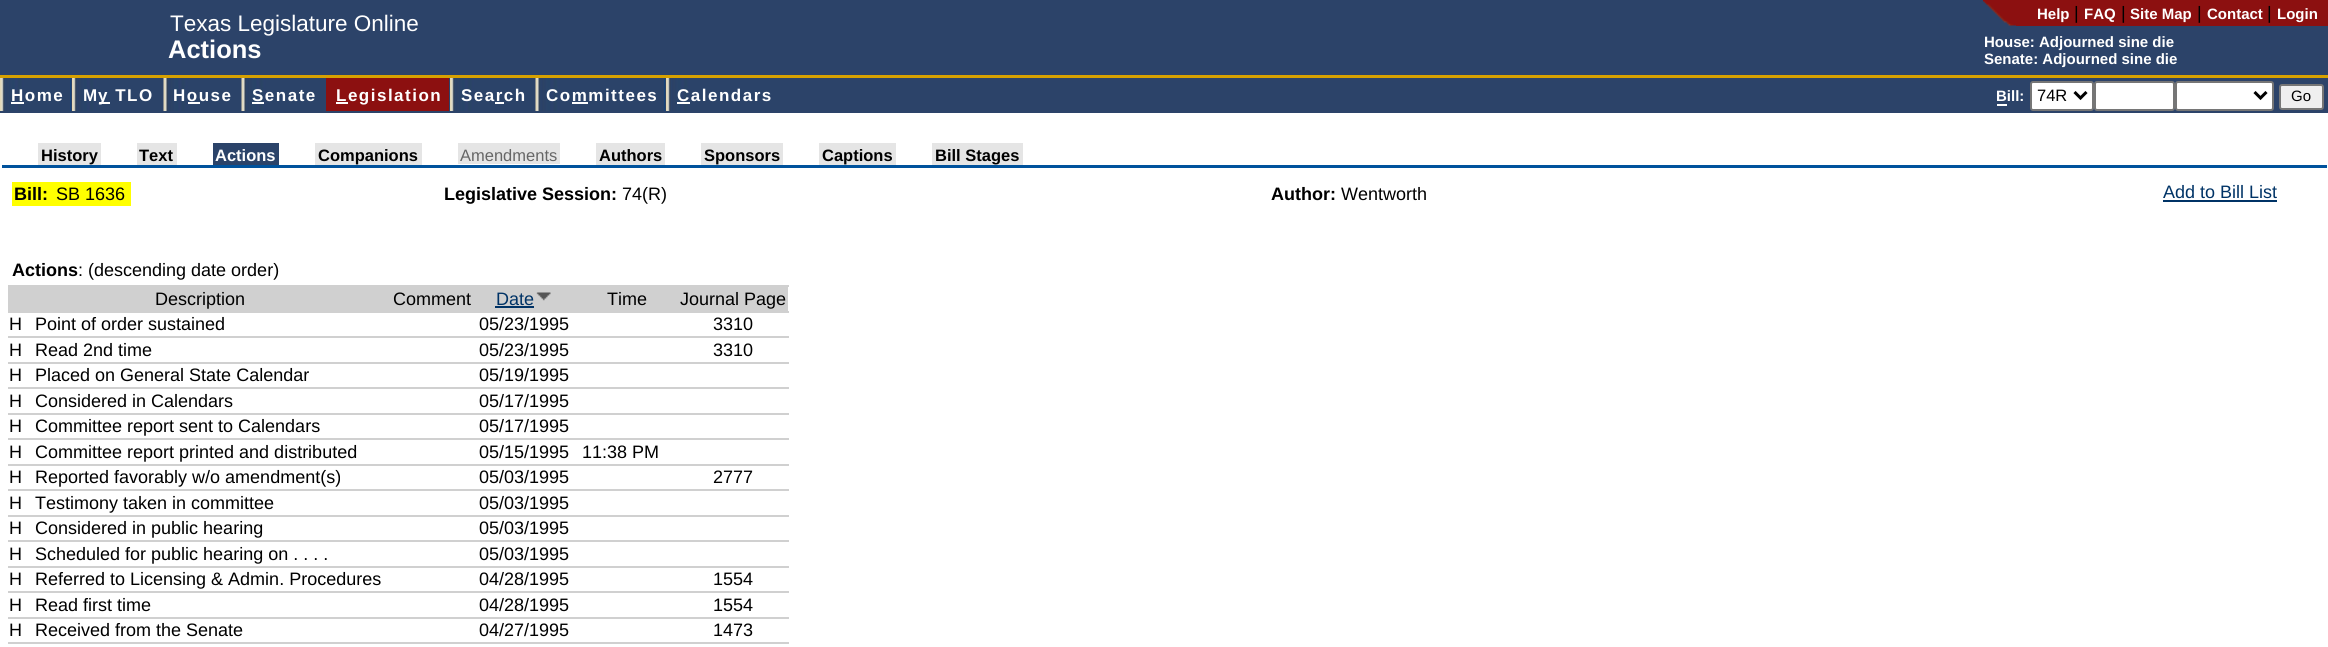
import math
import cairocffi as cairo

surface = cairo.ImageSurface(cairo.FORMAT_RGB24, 2328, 647)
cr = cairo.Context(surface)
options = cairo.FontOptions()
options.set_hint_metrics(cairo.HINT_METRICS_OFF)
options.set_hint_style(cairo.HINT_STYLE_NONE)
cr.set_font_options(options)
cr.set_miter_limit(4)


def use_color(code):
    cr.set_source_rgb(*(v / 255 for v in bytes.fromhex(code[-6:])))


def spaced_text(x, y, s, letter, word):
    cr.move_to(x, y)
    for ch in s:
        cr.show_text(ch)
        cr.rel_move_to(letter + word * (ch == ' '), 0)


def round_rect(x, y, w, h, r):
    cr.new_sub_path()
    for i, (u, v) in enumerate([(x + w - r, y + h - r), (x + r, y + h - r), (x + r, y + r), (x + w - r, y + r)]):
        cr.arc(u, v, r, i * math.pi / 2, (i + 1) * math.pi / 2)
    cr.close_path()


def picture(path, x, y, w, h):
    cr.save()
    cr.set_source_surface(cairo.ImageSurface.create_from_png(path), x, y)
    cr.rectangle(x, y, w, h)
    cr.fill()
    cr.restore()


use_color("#ffffff")
cr.paint()
use_color("#2c4369")
cr.rectangle(0, 0, 2328, 75)
cr.fill()
cr.select_font_face("Liberation Sans")
cr.set_font_size(22.5)
use_color("#ffffff")
cr.move_to(170, 31)
cr.show_text("Texas Legislature Online")
cr.select_font_face("Liberation Sans", cairo.FONT_SLANT_NORMAL, cairo.FONT_WEIGHT_BOLD)
cr.set_font_size(25.5)
cr.move_to(168, 58)
cr.show_text("Actions")
picture("img1.png", 1983, 0, 33, 26)
use_color("#8c1010")
cr.rectangle(2016, 0, 312, 26)
cr.fill()
cr.set_font_size(15)
use_color("#ffffff")
cr.move_to(2037, 19)
cr.show_text("Help")
cr.select_font_face("Liberation Sans")
cr.set_font_size(18)
use_color("#000000")
cr.move_to(2074, 19)
cr.show_text("|")
cr.select_font_face("Liberation Sans", cairo.FONT_SLANT_NORMAL, cairo.FONT_WEIGHT_BOLD)
cr.set_font_size(15)
use_color("#ffffff")
cr.move_to(2084, 19)
cr.show_text("FAQ")
cr.select_font_face("Liberation Sans")
cr.set_font_size(18)
use_color("#000000")
cr.move_to(2121, 19)
cr.show_text("|")
cr.select_font_face("Liberation Sans", cairo.FONT_SLANT_NORMAL, cairo.FONT_WEIGHT_BOLD)
cr.set_font_size(15)
use_color("#ffffff")
cr.move_to(2130, 19)
cr.show_text("Site Map")
cr.select_font_face("Liberation Sans")
cr.set_font_size(18)
use_color("#000000")
cr.move_to(2197, 19)
cr.show_text("|")
cr.select_font_face("Liberation Sans", cairo.FONT_SLANT_NORMAL, cairo.FONT_WEIGHT_BOLD)
cr.set_font_size(15)
use_color("#ffffff")
cr.move_to(2207, 19)
cr.show_text("Contact")
cr.select_font_face("Liberation Sans")
cr.set_font_size(18)
use_color("#000000")
cr.move_to(2267, 19)
cr.show_text("|")
cr.select_font_face("Liberation Sans", cairo.FONT_SLANT_NORMAL, cairo.FONT_WEIGHT_BOLD)
cr.set_font_size(15)
use_color("#ffffff")
cr.move_to(2277, 19)
cr.show_text("Login")
cr.move_to(1984, 47)
cr.show_text("House: Adjourned sine die")
cr.move_to(1984, 64)
cr.show_text("Senate: Adjourned sine die")
use_color("#d7a100")
cr.rectangle(0, 75, 2328, 3)
cr.fill()
use_color("#2c4369")
cr.rectangle(0, 78, 2328, 35)
cr.fill()
use_color("#01458c")
cr.rectangle(70, 78, 1, 33)
cr.fill()
picture("img2.png", 0, 78, 71, 33)
cr.set_font_size(17)
use_color("#ffffff")
spaced_text(11, 101, "Home", 1.5, 0)
cr.rectangle(11, 102, 13, 2)
cr.fill()
picture("img3.png", 72, 78, 90, 33)
spaced_text(83, 101, "M", 1.5, 0)
cr.rectangle(99, 102, 11, 2)
cr.fill()
spaced_text(98, 101, "y TLO", 1.5, 0)
picture("img4.png", 163, 78, 77, 33)
spaced_text(173, 101, "House", 1.5, 0)
cr.rectangle(188, 102, 12, 2)
cr.fill()
picture("img5.png", 241, 78, 83, 33)
spaced_text(252, 101, "Senate", 1.5, 0)
cr.rectangle(252, 102, 12, 2)
cr.fill()
use_color("#8c1010")
cr.rectangle(326, 78, 123, 33)
cr.fill()
use_color("#ffffff")
cr.rectangle(336, 102, 12, 2)
cr.fill()
spaced_text(336, 101, "Legislation", 1.5, 0)
picture("img6.png", 450, 78, 84, 33)
spaced_text(461, 101, "Search", 1.5, 0)
cr.rectangle(495, 102, 9, 2)
cr.fill()
use_color("#01458c")
cr.rectangle(664, 78, 1, 33)
cr.fill()
picture("img7.png", 535, 78, 130, 33)
use_color("#ffffff")
spaced_text(546, 101, "Committees", 1.5, 0)
cr.rectangle(572, 102, 16, 2)
cr.fill()
picture("img8.png", 666, 78, 114, 33)
spaced_text(677, 101, "Calendars", 1.5, 0)
cr.rectangle(677, 102, 13, 2)
cr.fill()
cr.set_font_size(15)
cr.move_to(1996, 101)
cr.show_text("Bill:")
cr.rectangle(1997, 104, 10, 2)
cr.fill()
round_rect(2031, 82, 62, 28, 2)
cr.fill_preserve()
use_color("#767676")
cr.stroke()
cr.new_path()
cr.move_to(2074.5, 92)
cr.line_to(2080.5, 98)
cr.line_to(2086.5, 92)
use_color("#000000")
cr.set_line_width(3)
cr.stroke()
cr.select_font_face("Liberation Sans")
cr.set_font_size(16.5)
cr.move_to(2037, 101)
cr.show_text("74R")
use_color("#ffffff")
round_rect(2095, 82, 79, 28, 2)
cr.fill_preserve()
use_color("#767676")
cr.set_line_width(2)
cr.stroke()
use_color("#ffffff")
round_rect(2176, 82, 97, 28, 2)
cr.fill_preserve()
use_color("#767676")
cr.stroke()
cr.new_path()
cr.move_to(2254.5, 92)
cr.line_to(2260.5, 98)
cr.line_to(2266.5, 92)
use_color("#000000")
cr.set_line_width(3)
cr.stroke()
use_color("#efefef")
round_rect(2280, 85, 43, 24, 2)
cr.fill_preserve()
use_color("#767676")
cr.set_line_width(2)
cr.stroke()
cr.set_font_size(15)
use_color("#000000")
cr.move_to(2291, 101)
cr.show_text("Go")
use_color("#00529c")
cr.rectangle(2, 165, 2325, 3)
cr.fill()
use_color("#e5e5e5")
cr.rectangle(38, 143, 63, 22)
cr.fill()
cr.select_font_face("Liberation Sans", cairo.FONT_SLANT_NORMAL, cairo.FONT_WEIGHT_BOLD)
cr.set_font_size(16.5)
use_color("#000000")
cr.move_to(41, 161)
cr.show_text("History")
use_color("#e5e5e5")
cr.rectangle(137, 143, 40, 22)
cr.fill()
use_color("#000000")
cr.move_to(139, 161)
cr.show_text("Text")
use_color("#2b4369")
cr.rectangle(213, 143, 66, 22)
cr.fill()
use_color("#ffffff")
cr.move_to(215, 161)
cr.show_text("Actions")
use_color("#e5e5e5")
cr.rectangle(315, 143, 107, 22)
cr.fill()
use_color("#000000")
cr.move_to(318, 161)
cr.show_text("Companions")
use_color("#e5e5e5")
cr.rectangle(458, 143, 102, 21)
cr.fill()
cr.select_font_face("Liberation Sans")
use_color("#666666")
cr.move_to(460, 161)
cr.show_text("Amendments")
use_color("#e5e5e5")
cr.rectangle(596, 143, 69, 22)
cr.fill()
cr.select_font_face("Liberation Sans", cairo.FONT_SLANT_NORMAL, cairo.FONT_WEIGHT_BOLD)
use_color("#000000")
cr.move_to(599, 161)
cr.show_text("Authors")
use_color("#e5e5e5")
cr.rectangle(701, 143, 82, 22)
cr.fill()
use_color("#000000")
cr.move_to(704, 161)
cr.show_text("Sponsors")
use_color("#e5e5e5")
cr.rectangle(819, 143, 77, 22)
cr.fill()
use_color("#000000")
cr.move_to(822, 161)
cr.show_text("Captions")
use_color("#e5e5e5")
cr.rectangle(932, 143, 91, 22)
cr.fill()
use_color("#000000")
cr.move_to(935, 161)
cr.show_text("Bill Stages")
use_color("#ffff00")
cr.rectangle(12, 182, 119, 24)
cr.fill()
cr.set_font_size(18)
use_color("#000000")
cr.move_to(14, 200)
cr.show_text("Bill:")
cr.select_font_face("Liberation Sans")
cr.move_to(56, 200)
cr.show_text("SB 1636")
cr.select_font_face("Liberation Sans", cairo.FONT_SLANT_NORMAL, cairo.FONT_WEIGHT_BOLD)
cr.move_to(444, 200)
cr.show_text("Legislative Session:")
cr.select_font_face("Liberation Sans")
cr.move_to(622, 200)
cr.show_text("74(R)")
cr.select_font_face("Liberation Sans", cairo.FONT_SLANT_NORMAL, cairo.FONT_WEIGHT_BOLD)
cr.move_to(1271, 200)
cr.show_text("Author:")
cr.select_font_face("Liberation Sans")
cr.move_to(1341, 200)
cr.show_text("Wentworth")
use_color("#003366")
cr.move_to(2163, 198)
cr.show_text("Add to Bill List")
cr.rectangle(2163, 200, 114, 2)
cr.fill()
cr.select_font_face("Liberation Sans", cairo.FONT_SLANT_NORMAL, cairo.FONT_WEIGHT_BOLD)
use_color("#000000")
cr.move_to(12, 276)
cr.show_text("Actions")
cr.select_font_face("Liberation Sans")
cr.move_to(78, 276)
cr.show_text(": (descending date order)")
use_color("#d0d0d0")
cr.rectangle(8, 285, 781, 2)
cr.fill()
cr.rectangle(8, 287, 780, 24)
cr.fill()
use_color("#000000")
cr.move_to(155, 305)
cr.show_text("Description")
cr.move_to(393, 305)
cr.show_text("Comment")
use_color("#003366")
cr.move_to(496, 305)
cr.show_text("Date")
cr.rectangle(495, 306, 39, 2)
cr.fill()
picture("img9.png", 536, 292, 15, 9)
use_color("#000000")
cr.move_to(607, 305)
cr.show_text("Time")
cr.move_to(680, 305)
cr.show_text("Journal Page")
cr.move_to(9, 330)
cr.show_text("H")
cr.move_to(35, 330)
cr.show_text("Point of order sustained")
cr.move_to(479, 330)
cr.show_text("05/23/1995")
use_color("#d0d0d0")
cr.rectangle(8, 311, 781, 2)
cr.fill()
use_color("#000000")
cr.move_to(713, 330)
cr.show_text("3310")
cr.move_to(9, 356)
cr.show_text("H")
cr.move_to(35, 356)
cr.show_text("Read 2nd time")
cr.move_to(479, 356)
cr.show_text("05/23/1995")
use_color("#d0d0d0")
cr.rectangle(8, 336, 781, 2)
cr.fill()
use_color("#000000")
cr.move_to(713, 356)
cr.show_text("3310")
use_color("#d0d0d0")
cr.rectangle(8, 362, 781, 2)
cr.fill()
use_color("#000000")
cr.move_to(9, 381)
cr.show_text("H")
cr.move_to(35, 381)
cr.show_text("Placed on General State Calendar")
cr.move_to(479, 381)
cr.show_text("05/19/1995")
use_color("#d0d0d0")
cr.rectangle(8, 387, 781, 2)
cr.fill()
use_color("#000000")
cr.move_to(9, 407)
cr.show_text("H")
cr.move_to(35, 407)
cr.show_text("Considered in Calendars")
cr.move_to(479, 407)
cr.show_text("05/17/1995")
use_color("#d0d0d0")
cr.rectangle(8, 413, 781, 2)
cr.fill()
use_color("#000000")
cr.move_to(9, 432)
cr.show_text("H")
cr.move_to(35, 432)
cr.show_text("Committee report sent to Calendars")
cr.move_to(479, 432)
cr.show_text("05/17/1995")
use_color("#d0d0d0")
cr.rectangle(8, 438, 781, 2)
cr.fill()
use_color("#000000")
cr.move_to(9, 458)
cr.show_text("H")
cr.move_to(35, 458)
cr.show_text("Committee report printed and distributed")
cr.move_to(479, 458)
cr.show_text("05/15/1995")
cr.move_to(582, 458)
cr.show_text("11:38 PM")
cr.move_to(9, 483)
cr.show_text("H")
cr.move_to(35, 483)
cr.show_text("Reported favorably w/o amendment(s)")
cr.move_to(479, 483)
cr.show_text("05/03/1995")
use_color("#d0d0d0")
cr.rectangle(8, 464, 781, 2)
cr.fill()
use_color("#000000")
cr.move_to(713, 483)
cr.show_text("2777")
use_color("#d0d0d0")
cr.rectangle(8, 489, 781, 2)
cr.fill()
use_color("#000000")
cr.move_to(9, 509)
cr.show_text("H")
cr.move_to(35, 509)
cr.show_text("Testimony taken in committee")
cr.move_to(479, 509)
cr.show_text("05/03/1995")
use_color("#d0d0d0")
cr.rectangle(8, 515, 781, 2)
cr.fill()
use_color("#000000")
cr.move_to(9, 534)
cr.show_text("H")
cr.move_to(35, 534)
cr.show_text("Considered in public hearing")
cr.move_to(479, 534)
cr.show_text("05/03/1995")
use_color("#d0d0d0")
cr.rectangle(8, 540, 781, 2)
cr.fill()
use_color("#000000")
cr.move_to(9, 560)
cr.show_text("H")
cr.move_to(35, 560)
cr.show_text("Scheduled for public hearing on . . . .")
cr.move_to(479, 560)
cr.show_text("05/03/1995")
cr.move_to(9, 585)
cr.show_text("H")
cr.move_to(35, 585)
cr.show_text("Referred to Licensing & Admin. Procedures")
cr.move_to(479, 585)
cr.show_text("04/28/1995")
use_color("#d0d0d0")
cr.rectangle(8, 566, 781, 2)
cr.fill()
use_color("#000000")
cr.move_to(713, 585)
cr.show_text("1554")
cr.move_to(9, 611)
cr.show_text("H")
cr.move_to(35, 611)
cr.show_text("Read first time")
cr.move_to(479, 611)
cr.show_text("04/28/1995")
use_color("#d0d0d0")
cr.rectangle(8, 591, 781, 2)
cr.fill()
use_color("#000000")
cr.move_to(713, 611)
cr.show_text("1554")
cr.move_to(9, 636)
cr.show_text("H")
cr.move_to(35, 636)
cr.show_text("Received from the Senate")
cr.move_to(479, 636)
cr.show_text("04/27/1995")
use_color("#d0d0d0")
cr.rectangle(8, 617, 781, 2)
cr.fill()
use_color("#000000")
cr.move_to(713, 636)
cr.show_text("1473")
use_color("#d0d0d0")
cr.rectangle(8, 642, 781, 2)
cr.fill()
surface.write_to_png("result.png")
